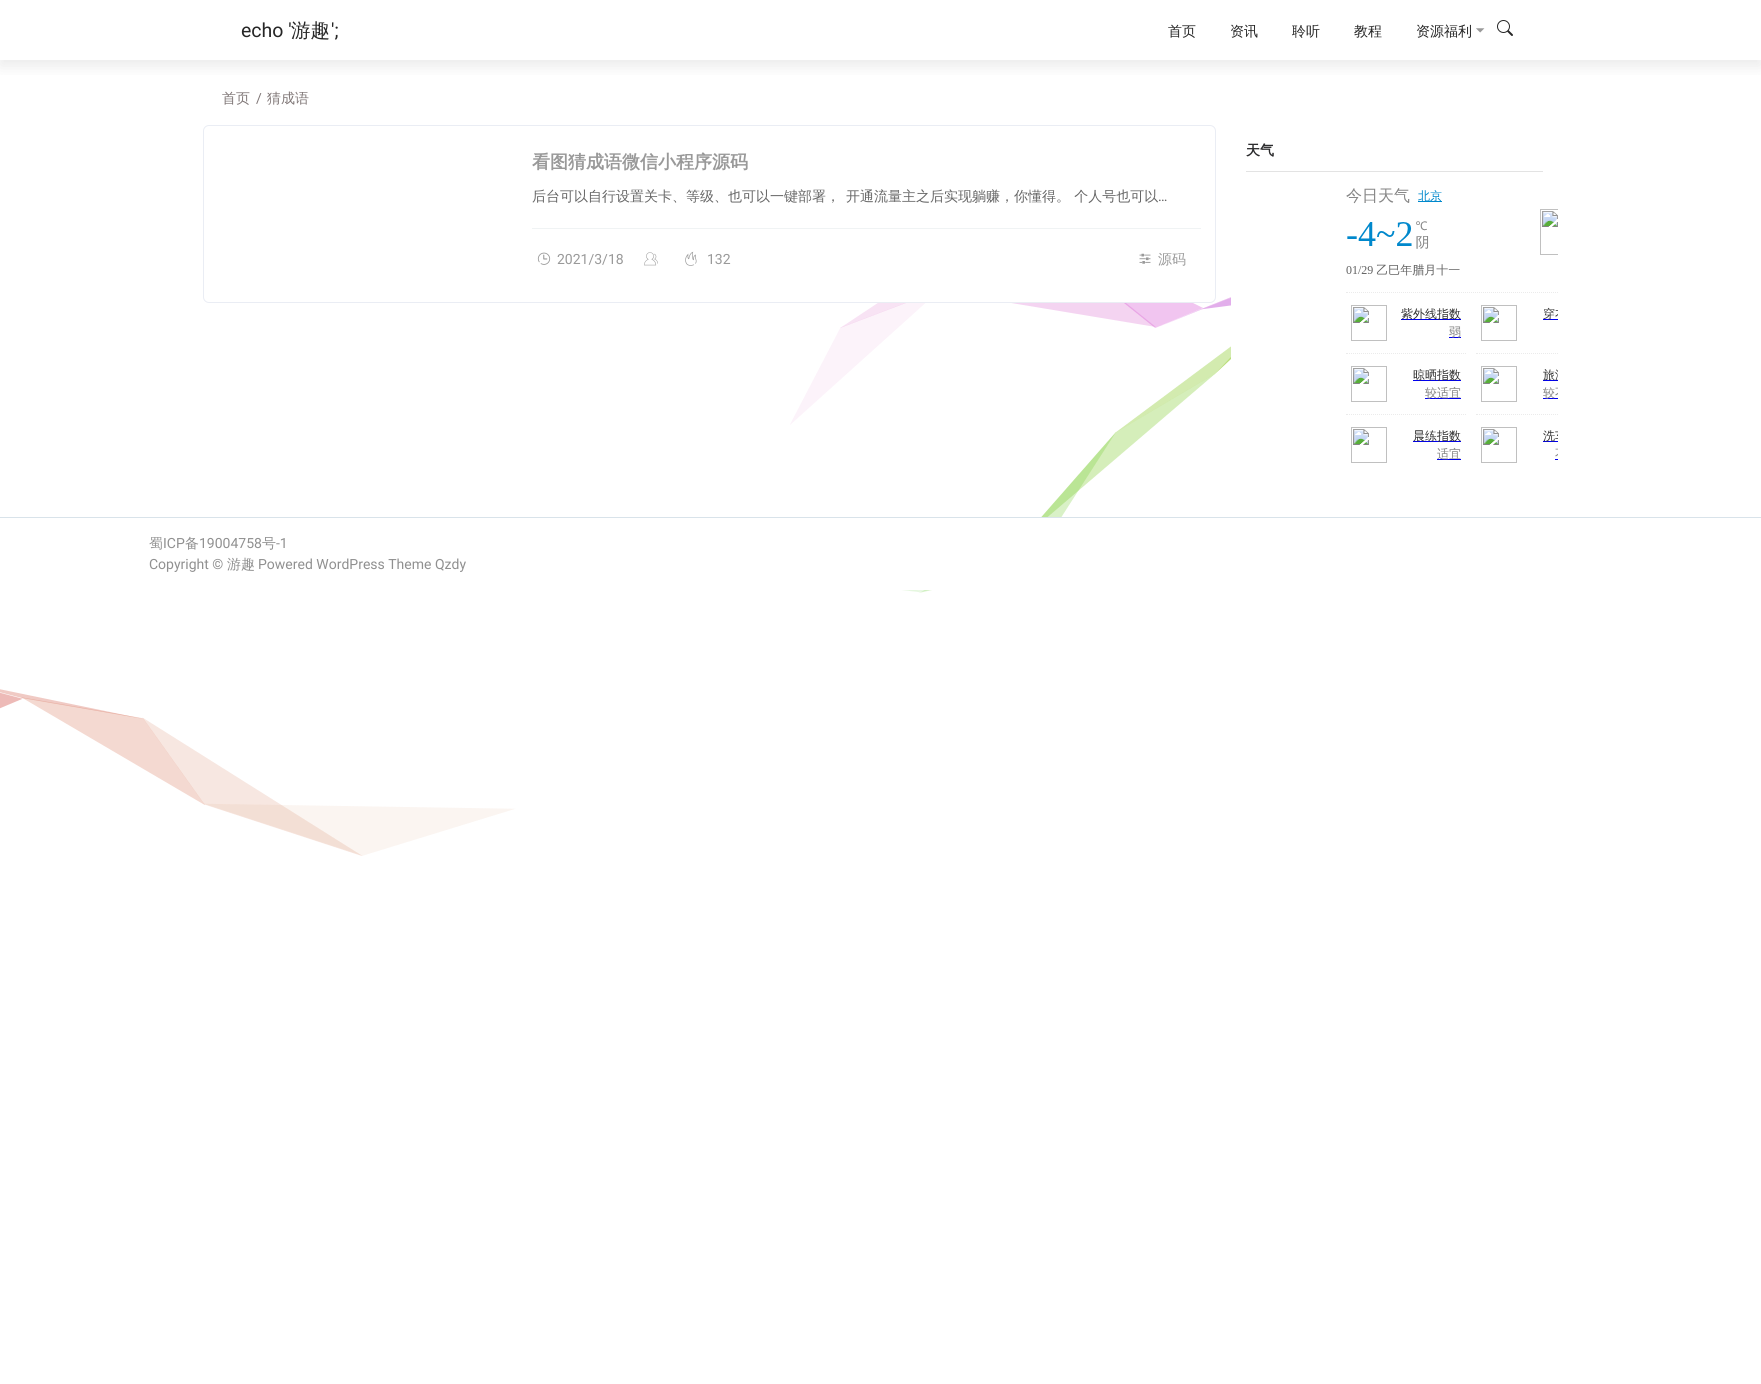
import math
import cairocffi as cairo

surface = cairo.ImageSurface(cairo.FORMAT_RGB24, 1761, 1384)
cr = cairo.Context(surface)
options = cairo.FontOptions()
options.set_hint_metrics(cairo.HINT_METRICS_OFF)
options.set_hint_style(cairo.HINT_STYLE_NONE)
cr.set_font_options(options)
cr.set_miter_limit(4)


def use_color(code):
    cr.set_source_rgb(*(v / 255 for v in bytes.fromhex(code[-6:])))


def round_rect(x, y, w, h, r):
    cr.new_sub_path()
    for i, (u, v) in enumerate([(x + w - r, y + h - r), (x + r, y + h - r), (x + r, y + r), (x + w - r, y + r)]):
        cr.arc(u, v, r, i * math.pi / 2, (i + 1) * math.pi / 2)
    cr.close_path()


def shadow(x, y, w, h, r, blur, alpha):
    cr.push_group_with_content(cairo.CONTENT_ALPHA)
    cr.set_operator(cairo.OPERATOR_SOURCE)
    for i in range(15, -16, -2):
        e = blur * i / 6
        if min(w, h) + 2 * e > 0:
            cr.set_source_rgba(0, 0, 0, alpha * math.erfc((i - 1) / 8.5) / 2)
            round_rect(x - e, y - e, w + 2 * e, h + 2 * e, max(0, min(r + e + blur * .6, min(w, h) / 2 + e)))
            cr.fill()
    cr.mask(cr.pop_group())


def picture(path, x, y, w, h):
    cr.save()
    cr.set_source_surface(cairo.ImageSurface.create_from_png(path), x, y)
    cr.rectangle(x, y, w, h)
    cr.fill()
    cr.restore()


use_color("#ffffff")
cr.paint()
cr.save()
cr.rectangle(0, 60, 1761, 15)
cr.clip()
use_color("#8e8e8e")
shadow(0, 6, 1761, 60, 0, 7.5, 0.19)
cr.restore()
cr.select_font_face("Roboto")
cr.set_font_size(19.5)
use_color("#262626")
cr.move_to(241, 37)
cr.show_text("echo '")
cr.select_font_face("WenQuanYi Zen Hei Medium")
cr.move_to(291, 37)
cr.show_text("游趣")
cr.select_font_face("Roboto")
cr.move_to(331, 37)
cr.show_text("';")
cr.select_font_face("WenQuanYi Zen Hei Medium")
cr.set_font_size(14)
cr.move_to(1168, 36)
cr.show_text("首页")
cr.move_to(1230, 36)
cr.show_text("资讯")
cr.move_to(1292, 36)
cr.show_text("聆听")
cr.move_to(1354, 36)
cr.show_text("教程")
cr.move_to(1416, 36)
cr.show_text("资源福利")
picture("img1.png", 1476, 28, 9, 5)
picture("img2.png", 1497, 20, 16, 16)
use_color("#807777")
cr.move_to(222, 103)
cr.show_text("首页")
cr.select_font_face("Roboto")
cr.move_to(256, 103)
cr.show_text("/")
cr.select_font_face("WenQuanYi Zen Hei Medium")
cr.move_to(267, 103)
cr.show_text("猜成语")
use_color("#e3e3e3")
cr.rectangle(1246, 171, 297, 1)
cr.fill()
cr.select_font_face("WenQuanYi Zen Hei", cairo.FONT_SLANT_NORMAL, cairo.FONT_WEIGHT_BOLD)
use_color("#2b2b2d")
cr.move_to(1246, 155)
cr.show_text("天气")
picture("img3.png", 1346, 188, 212, 275)
picture("img8.png", 0, 297, 1231, 559)
use_color("#ffffff")
round_rect(203.5, 125.5, 1012, 177, 5.5)
cr.fill_preserve()
use_color("#eaedf4")
cr.set_line_width(1)
cr.stroke()
cr.set_font_size(18)
use_color("#999999")
cr.move_to(532, 168)
cr.show_text("看图猜成语微信小程序源码")
cr.select_font_face("WenQuanYi Zen Hei Medium")
cr.set_font_size(14)
use_color("#666666")
cr.move_to(532, 201)
cr.show_text("后台可以自行设置关卡、等级、也可以一键部署，")
cr.move_to(846, 201)
cr.show_text("开通流量主之后实现躺赚，你懂得。 个人号也可以")
cr.select_font_face("Roboto")
cr.move_to(1158, 201)
cr.show_text("…")
use_color("#f0f3f4")
cr.rectangle(532, 228, 669, 1)
cr.fill()
picture("img4.png", 537, 252, 14, 13)
use_color("#999999")
cr.move_to(557, 264)
cr.show_text("2021/3/18")
picture("img5.png", 644, 252, 14, 14)
picture("img6.png", 685, 251, 12, 15)
cr.move_to(707, 264)
cr.show_text("132")
picture("img7.png", 1139, 253, 12, 11)
cr.select_font_face("WenQuanYi Zen Hei Medium")
cr.move_to(1158, 264)
cr.show_text("源码")
use_color("#ffffff")
cr.rectangle(686, 518, 375, 72)
cr.fill()
use_color("#d9e3ea")
cr.rectangle(0, 517, 1761, 1)
cr.fill()
use_color("#909090")
cr.move_to(149, 548)
cr.show_text("蜀")
cr.select_font_face("Roboto")
cr.move_to(163, 548)
cr.show_text("ICP")
cr.select_font_face("WenQuanYi Zen Hei Medium")
cr.move_to(185, 548)
cr.show_text("备")
cr.select_font_face("Roboto")
cr.move_to(199, 548)
cr.show_text("19004758")
cr.select_font_face("WenQuanYi Zen Hei Medium")
cr.move_to(262, 548)
cr.show_text("号")
cr.select_font_face("Roboto")
cr.move_to(276, 548)
cr.show_text("-1")
cr.move_to(149, 569)
cr.show_text("Copyright ©")
cr.select_font_face("WenQuanYi Zen Hei Medium")
cr.move_to(227, 569)
cr.show_text("游趣")
cr.select_font_face("Roboto")
cr.move_to(258, 569)
cr.show_text("Powered WordPress Theme Qzdy")
surface.write_to_png("result.png")
